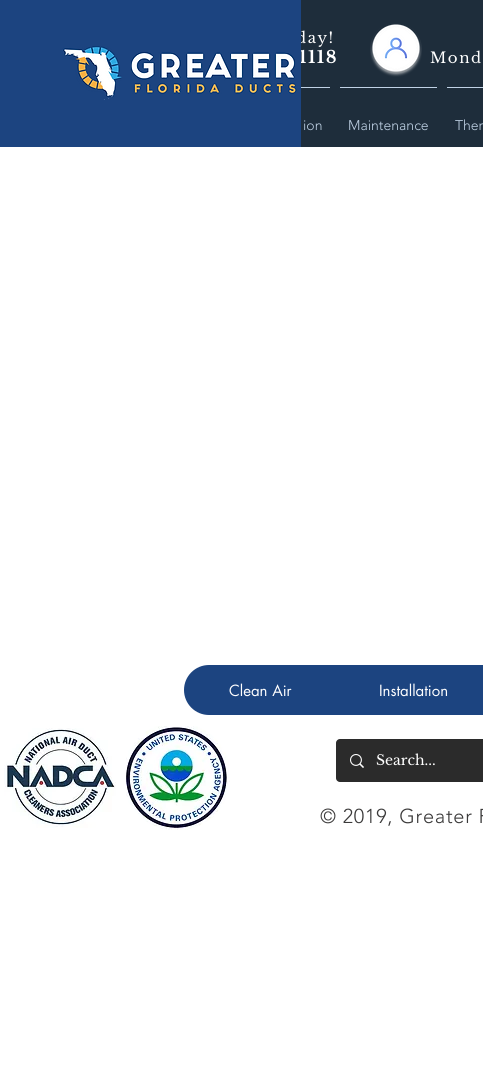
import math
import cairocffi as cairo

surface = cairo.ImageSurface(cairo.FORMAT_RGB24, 483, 1091)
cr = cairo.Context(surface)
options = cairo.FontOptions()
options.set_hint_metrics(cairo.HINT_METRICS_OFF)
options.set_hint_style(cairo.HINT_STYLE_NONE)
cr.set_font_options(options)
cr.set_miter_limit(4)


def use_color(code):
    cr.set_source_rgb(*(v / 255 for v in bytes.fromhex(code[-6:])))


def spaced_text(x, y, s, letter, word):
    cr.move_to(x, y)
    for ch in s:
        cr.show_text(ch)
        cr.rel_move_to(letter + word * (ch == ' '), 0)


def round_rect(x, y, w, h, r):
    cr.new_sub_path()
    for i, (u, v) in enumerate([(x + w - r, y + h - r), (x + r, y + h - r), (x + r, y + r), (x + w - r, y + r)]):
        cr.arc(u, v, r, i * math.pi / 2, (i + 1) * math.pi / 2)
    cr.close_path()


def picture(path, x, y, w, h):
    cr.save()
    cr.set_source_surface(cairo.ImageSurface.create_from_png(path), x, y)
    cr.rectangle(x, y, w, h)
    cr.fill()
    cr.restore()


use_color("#ffffff")
cr.paint()
use_color("#1e2d3b")
cr.rectangle(301, 0, 182, 147)
cr.fill()
cr.select_font_face("Libre Baskerville")
cr.set_font_size(15)
use_color("#ffffff")
spaced_text(296, 43, "day!", 1.5, 0)
cr.select_font_face("Libre Baskerville", cairo.FONT_SLANT_NORMAL, cairo.FONT_WEIGHT_BOLD)
cr.set_font_size(17)
spaced_text(299, 63, "1118", 1.5, 0)
use_color("#1c4480")
cr.rectangle(0, 0, 301, 147)
cr.fill()
picture("img1.png", 62, 46, 60, 54)
picture("img2.png", 131, 52, 166, 42)
picture("img3.png", 370, 24, 52, 53)
cr.select_font_face("Libre Baskerville")
cr.set_font_size(15)
use_color("#ffffff")
spaced_text(430, 63, "Mond", 1.5, 0)
use_color("#c0d2e5")
cr.rectangle(301, 87, 29, 1)
cr.fill()
cr.select_font_face("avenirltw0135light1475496 Light")
cr.set_font_size(14)
cr.move_to(303, 130)
cr.show_text("ion")
cr.rectangle(340, 87, 97, 1)
cr.fill()
cr.move_to(348, 130)
cr.show_text("Maintenance")
cr.rectangle(447, 87, 36, 1)
cr.fill()
cr.move_to(455, 130)
cr.show_text("Ther")
use_color("#1c4480")
round_rect(184, 665, 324, 50, 25)
cr.fill()
cr.select_font_face("futura")
cr.set_font_size(15)
use_color("#ffffff")
cr.move_to(229, 696)
cr.show_text("Clean Air")
cr.move_to(379, 696)
cr.show_text("Installation")
picture("img4.png", 4, 728, 112, 100)
picture("img5.png", 126, 726, 104, 104)
use_color("#2b2b2b")
round_rect(336, 739, 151, 43, 4)
cr.fill()
picture("img6.png", 350, 754, 14, 14)
cr.select_font_face("Libre Baskerville")
cr.set_font_size(14)
use_color("#ffffff")
cr.move_to(376, 765)
cr.show_text("Search...")
cr.select_font_face("avenirltw0135light1475496 Light")
cr.set_font_size(20)
use_color("#3b3a3a")
spaced_text(320, 823, "© 2019, Greater F", 0.75, 0)
surface.write_to_png("result.png")
